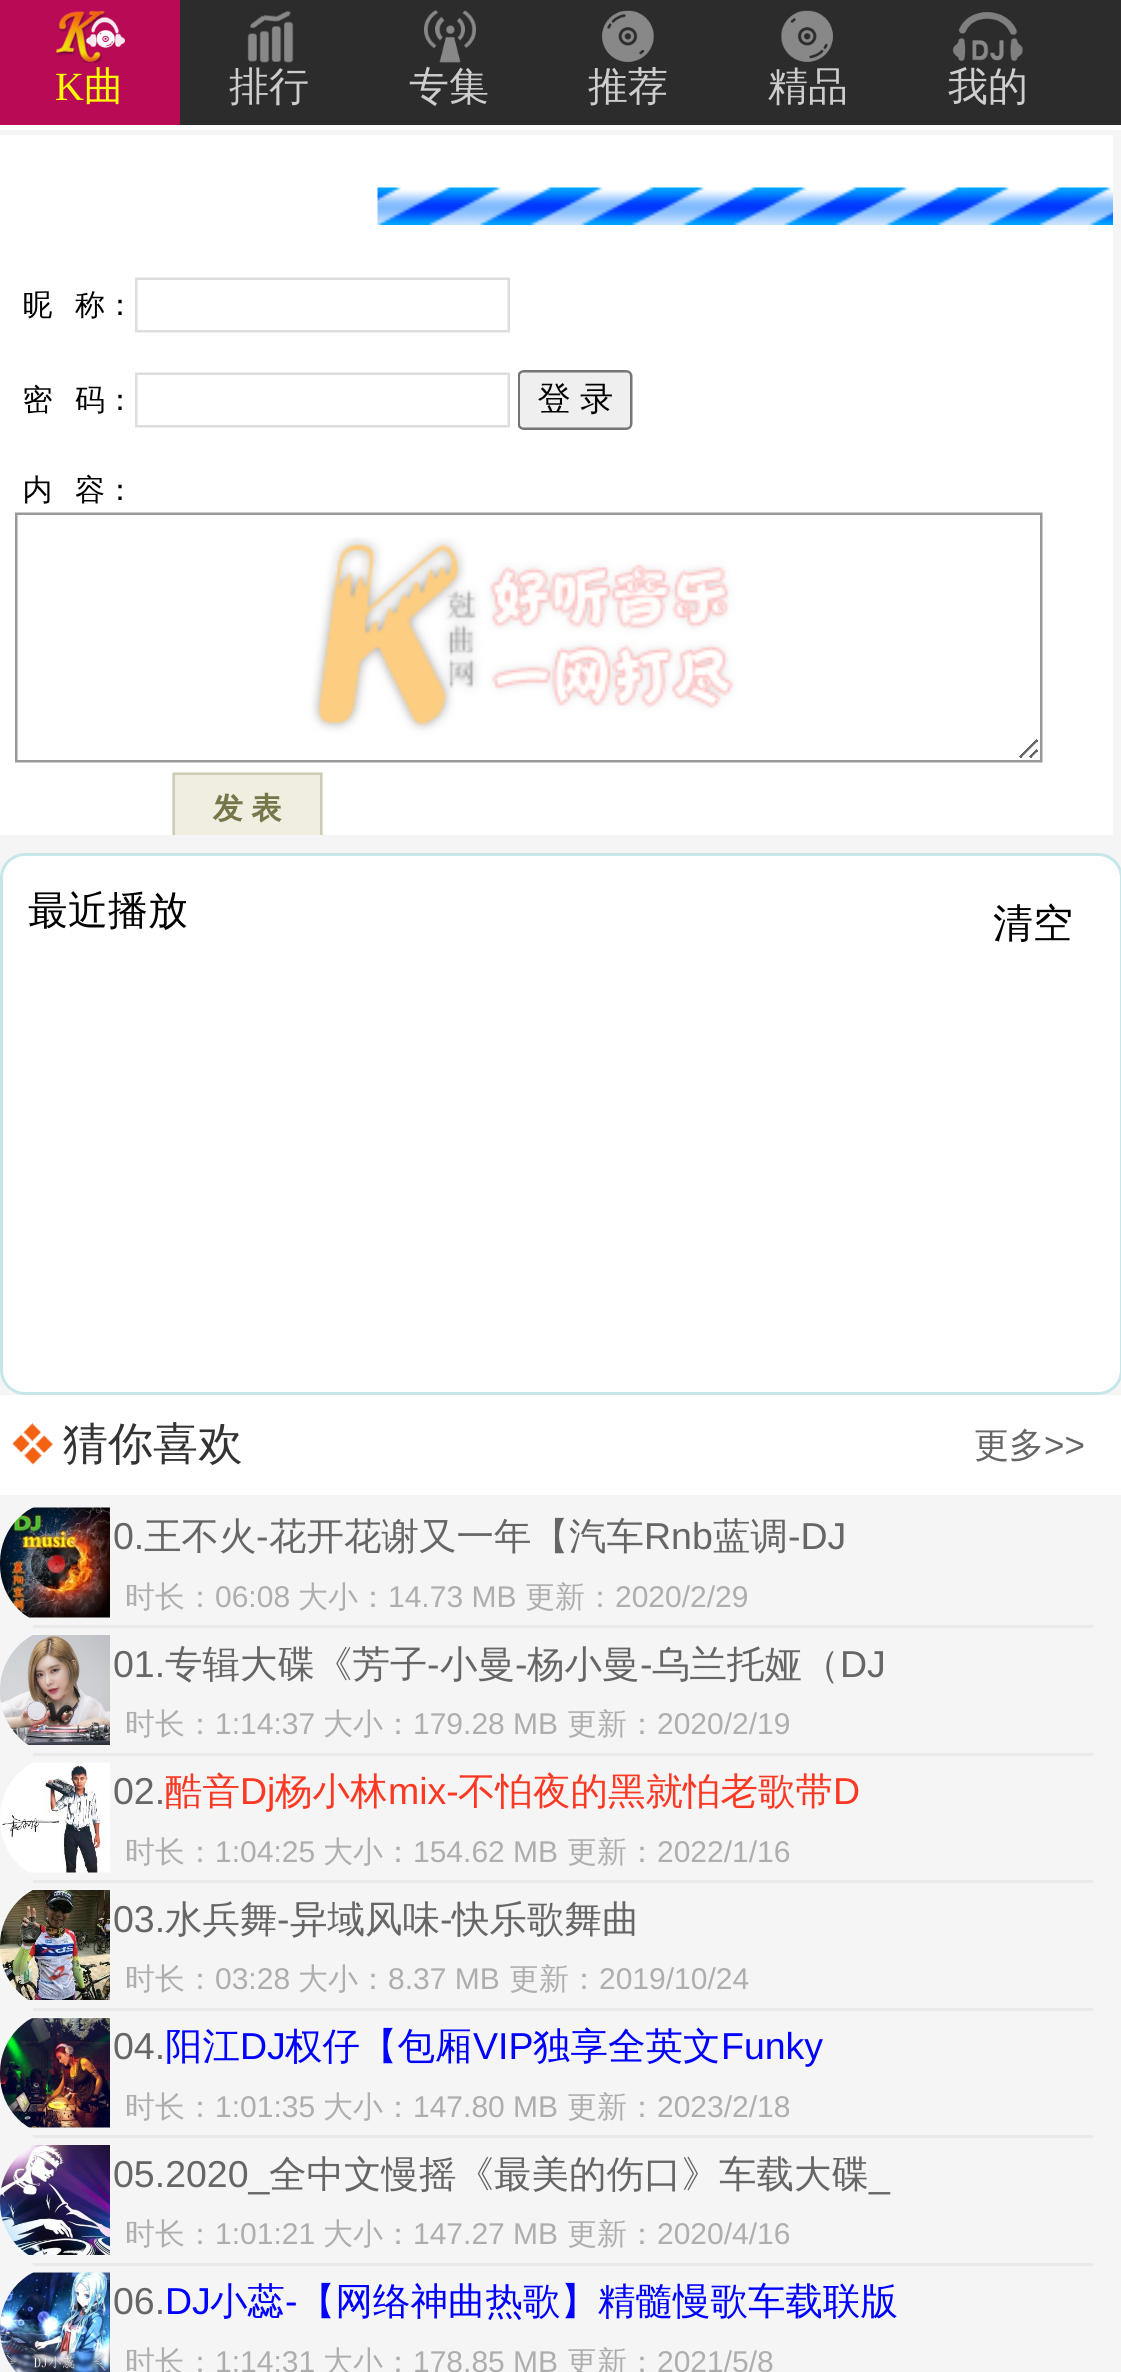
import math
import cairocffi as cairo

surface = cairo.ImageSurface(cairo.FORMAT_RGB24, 1121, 2372)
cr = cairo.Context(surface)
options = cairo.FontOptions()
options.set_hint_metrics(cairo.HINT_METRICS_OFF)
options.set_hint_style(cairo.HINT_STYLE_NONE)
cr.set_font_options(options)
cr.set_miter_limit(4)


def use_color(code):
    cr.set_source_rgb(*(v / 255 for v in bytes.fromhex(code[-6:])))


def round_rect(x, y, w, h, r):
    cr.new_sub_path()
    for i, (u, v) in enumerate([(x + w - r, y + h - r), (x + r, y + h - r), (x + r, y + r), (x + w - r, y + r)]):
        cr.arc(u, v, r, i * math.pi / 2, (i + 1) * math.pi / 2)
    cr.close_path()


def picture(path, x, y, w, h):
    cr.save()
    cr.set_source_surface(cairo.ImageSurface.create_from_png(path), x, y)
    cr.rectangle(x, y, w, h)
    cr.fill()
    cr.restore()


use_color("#f5f5f5")
cr.paint()
use_color("#2c2c2c")
cr.rectangle(180, 0, 941, 125)
cr.fill()
use_color("#b90a56")
cr.rectangle(0, 0, 180, 125)
cr.fill()
picture("img1.png", 55, 10, 70, 53)
cr.select_font_face("Liberation Serif")
cr.set_font_size(40)
use_color("#ffff00")
cr.move_to(55, 100)
cr.show_text("K")
cr.select_font_face("WenQuanYi Zen Hei Medium")
cr.move_to(84, 100)
cr.show_text("曲")
picture("img2.png", 247, 11, 47, 52)
use_color("#cdcdcd")
cr.move_to(229, 100)
cr.show_text("排行")
picture("img3.png", 424, 10, 52, 53)
cr.move_to(409, 100)
cr.show_text("专集")
picture("img4.png", 602, 10, 52, 52)
cr.move_to(588, 100)
cr.show_text("推荐")
picture("img5.png", 781, 10, 52, 52)
cr.move_to(768, 100)
cr.show_text("精品")
picture("img6.png", 952, 12, 71, 49)
cr.move_to(948, 100)
cr.show_text("我的")
use_color("#ffffff")
cr.rectangle(0, 125, 1121, 5)
cr.fill()
picture("img7.png", 0, 135, 1113, 700)
round_rect(1.5, 854.5, 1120, 539, 23.5)
cr.fill_preserve()
use_color("#c7e6e8")
cr.set_line_width(3)
cr.stroke()
use_color("#000000")
cr.move_to(28, 924)
cr.show_text("最近播放")
cr.move_to(993, 937)
cr.show_text("清空")
use_color("#ffffff")
cr.rectangle(0, 1395, 1121, 100)
cr.fill()
picture("img8.png", 12, 1422, 41, 43)
cr.set_font_size(45)
use_color("#333333")
cr.move_to(63, 1459)
cr.show_text("猜你喜欢")
cr.set_font_size(35)
use_color("#666666")
cr.move_to(974, 1457)
cr.show_text("更多")
cr.select_font_face("Liberation Sans")
cr.move_to(1044, 1457)
cr.show_text(">>")
picture("img9.png", 0, 1507, 110, 111)
use_color("#eaeaea")
cr.rectangle(33, 1625, 1060, 3)
cr.fill()
cr.set_font_size(37.5)
use_color("#666666")
cr.move_to(113, 1549)
cr.show_text("0.")
cr.select_font_face("WenQuanYi Zen Hei Medium")
cr.move_to(144, 1549)
cr.show_text("王不火")
cr.select_font_face("Liberation Sans")
cr.move_to(256, 1549)
cr.show_text("-")
cr.select_font_face("WenQuanYi Zen Hei Medium")
cr.move_to(269, 1549)
cr.show_text("花开花谢又一年【汽车")
cr.select_font_face("Liberation Sans")
cr.move_to(644, 1549)
cr.show_text("Rnb")
cr.select_font_face("WenQuanYi Zen Hei Medium")
cr.move_to(713, 1549)
cr.show_text("蓝调")
cr.select_font_face("Liberation Sans")
cr.move_to(788, 1549)
cr.show_text("-DJ")
cr.select_font_face("WenQuanYi Zen Hei Medium")
cr.set_font_size(30)
use_color("#aeaeae")
cr.move_to(125, 1607)
cr.show_text("时长：")
cr.select_font_face("Liberation Sans")
cr.move_to(215, 1607)
cr.show_text("06:08")
cr.select_font_face("WenQuanYi Zen Hei Medium")
cr.move_to(298, 1607)
cr.show_text("大小：")
cr.select_font_face("Liberation Sans")
cr.move_to(388, 1607)
cr.show_text("14.73 MB")
cr.select_font_face("WenQuanYi Zen Hei Medium")
cr.move_to(525, 1607)
cr.show_text("更新：")
cr.select_font_face("Liberation Sans")
cr.move_to(615, 1607)
cr.show_text("2020/2/29")
picture("img10.png", 0, 1635, 110, 110)
use_color("#eaeaea")
cr.rectangle(33, 1753, 1060, 3)
cr.fill()
cr.set_font_size(37.5)
use_color("#666666")
cr.move_to(113, 1677)
cr.show_text("01.")
cr.select_font_face("WenQuanYi Zen Hei Medium")
cr.move_to(165, 1677)
cr.show_text("专辑大碟《芳子")
cr.select_font_face("Liberation Sans")
cr.move_to(427, 1677)
cr.show_text("-")
cr.select_font_face("WenQuanYi Zen Hei Medium")
cr.move_to(440, 1677)
cr.show_text("小曼")
cr.select_font_face("Liberation Sans")
cr.move_to(515, 1677)
cr.show_text("-")
cr.select_font_face("WenQuanYi Zen Hei Medium")
cr.move_to(527, 1677)
cr.show_text("杨小曼")
cr.select_font_face("Liberation Sans")
cr.move_to(640, 1677)
cr.show_text("-")
cr.select_font_face("WenQuanYi Zen Hei Medium")
cr.move_to(652, 1677)
cr.show_text("乌兰托娅（")
cr.select_font_face("Liberation Sans")
cr.move_to(840, 1677)
cr.show_text("DJ")
cr.select_font_face("WenQuanYi Zen Hei Medium")
cr.set_font_size(30)
use_color("#aeaeae")
cr.move_to(125, 1734)
cr.show_text("时长：")
cr.select_font_face("Liberation Sans")
cr.move_to(215, 1734)
cr.show_text("1:14:37")
cr.select_font_face("WenQuanYi Zen Hei Medium")
cr.move_to(323, 1734)
cr.show_text("大小：")
cr.select_font_face("Liberation Sans")
cr.move_to(413, 1734)
cr.show_text("179.28 MB")
cr.select_font_face("WenQuanYi Zen Hei Medium")
cr.move_to(567, 1734)
cr.show_text("更新：")
cr.select_font_face("Liberation Sans")
cr.move_to(657, 1734)
cr.show_text("2020/2/19")
picture("img11.png", 0, 1762, 110, 111)
use_color("#eaeaea")
cr.rectangle(33, 1880, 1060, 3)
cr.fill()
cr.set_font_size(37.5)
use_color("#666666")
cr.move_to(113, 1804)
cr.show_text("02.")
cr.select_font_face("WenQuanYi Zen Hei Medium")
use_color("#fc3823")
cr.move_to(165, 1804)
cr.show_text("酷音")
cr.select_font_face("Liberation Sans")
cr.move_to(240, 1804)
cr.show_text("Dj")
cr.select_font_face("WenQuanYi Zen Hei Medium")
cr.move_to(275, 1804)
cr.show_text("杨小林")
cr.select_font_face("Liberation Sans")
cr.move_to(388, 1804)
cr.show_text("mix-")
cr.select_font_face("WenQuanYi Zen Hei Medium")
cr.move_to(458, 1804)
cr.show_text("不怕夜的黑就怕老歌带")
cr.select_font_face("Liberation Sans")
cr.move_to(833, 1804)
cr.show_text("D")
cr.select_font_face("WenQuanYi Zen Hei Medium")
cr.set_font_size(30)
use_color("#aeaeae")
cr.move_to(125, 1862)
cr.show_text("时长：")
cr.select_font_face("Liberation Sans")
cr.move_to(215, 1862)
cr.show_text("1:04:25")
cr.select_font_face("WenQuanYi Zen Hei Medium")
cr.move_to(323, 1862)
cr.show_text("大小：")
cr.select_font_face("Liberation Sans")
cr.move_to(413, 1862)
cr.show_text("154.62 MB")
cr.select_font_face("WenQuanYi Zen Hei Medium")
cr.move_to(567, 1862)
cr.show_text("更新：")
cr.select_font_face("Liberation Sans")
cr.move_to(657, 1862)
cr.show_text("2022/1/16")
picture("img12.png", 0, 1890, 110, 110)
use_color("#eaeaea")
cr.rectangle(33, 2008, 1060, 3)
cr.fill()
cr.set_font_size(37.5)
use_color("#666666")
cr.move_to(113, 1932)
cr.show_text("03.")
cr.select_font_face("WenQuanYi Zen Hei Medium")
cr.move_to(165, 1932)
cr.show_text("水兵舞")
cr.select_font_face("Liberation Sans")
cr.move_to(277, 1932)
cr.show_text("-")
cr.select_font_face("WenQuanYi Zen Hei Medium")
cr.move_to(290, 1932)
cr.show_text("异域风味")
cr.select_font_face("Liberation Sans")
cr.move_to(440, 1932)
cr.show_text("-")
cr.select_font_face("WenQuanYi Zen Hei Medium")
cr.move_to(452, 1932)
cr.show_text("快乐歌舞曲")
cr.set_font_size(30)
use_color("#aeaeae")
cr.move_to(125, 1989)
cr.show_text("时长：")
cr.select_font_face("Liberation Sans")
cr.move_to(215, 1989)
cr.show_text("03:28")
cr.select_font_face("WenQuanYi Zen Hei Medium")
cr.move_to(298, 1989)
cr.show_text("大小：")
cr.select_font_face("Liberation Sans")
cr.move_to(388, 1989)
cr.show_text("8.37 MB")
cr.select_font_face("WenQuanYi Zen Hei Medium")
cr.move_to(509, 1989)
cr.show_text("更新：")
cr.select_font_face("Liberation Sans")
cr.move_to(599, 1989)
cr.show_text("2019/10/24")
picture("img13.png", 0, 2017, 110, 111)
use_color("#eaeaea")
cr.rectangle(33, 2135, 1060, 3)
cr.fill()
cr.set_font_size(37.5)
use_color("#666666")
cr.move_to(113, 2059)
cr.show_text("04.")
cr.select_font_face("WenQuanYi Zen Hei Medium")
use_color("#0000ff")
cr.move_to(165, 2059)
cr.show_text("阳江")
cr.select_font_face("Liberation Sans")
cr.move_to(240, 2059)
cr.show_text("DJ")
cr.select_font_face("WenQuanYi Zen Hei Medium")
cr.move_to(285, 2059)
cr.show_text("权仔【包厢")
cr.select_font_face("Liberation Sans")
cr.move_to(473, 2059)
cr.show_text("VIP")
cr.select_font_face("WenQuanYi Zen Hei Medium")
cr.move_to(533, 2059)
cr.show_text("独享全英文")
cr.select_font_face("Liberation Sans")
cr.move_to(721, 2059)
cr.show_text("Funky")
cr.select_font_face("WenQuanYi Zen Hei Medium")
cr.set_font_size(30)
use_color("#aeaeae")
cr.move_to(125, 2117)
cr.show_text("时长：")
cr.select_font_face("Liberation Sans")
cr.move_to(215, 2117)
cr.show_text("1:01:35")
cr.select_font_face("WenQuanYi Zen Hei Medium")
cr.move_to(323, 2117)
cr.show_text("大小：")
cr.select_font_face("Liberation Sans")
cr.move_to(413, 2117)
cr.show_text("147.80 MB")
cr.select_font_face("WenQuanYi Zen Hei Medium")
cr.move_to(567, 2117)
cr.show_text("更新：")
cr.select_font_face("Liberation Sans")
cr.move_to(657, 2117)
cr.show_text("2023/2/18")
picture("img14.png", 0, 2145, 110, 110)
use_color("#eaeaea")
cr.rectangle(33, 2263, 1060, 3)
cr.fill()
cr.set_font_size(37.5)
use_color("#666666")
cr.move_to(113, 2187)
cr.show_text("05.2020_")
cr.select_font_face("WenQuanYi Zen Hei Medium")
cr.move_to(269, 2187)
cr.show_text("全中文慢摇《最美的伤口》车载大碟")
cr.select_font_face("Liberation Sans")
cr.move_to(869, 2187)
cr.show_text("_")
cr.select_font_face("WenQuanYi Zen Hei Medium")
cr.set_font_size(30)
use_color("#aeaeae")
cr.move_to(125, 2244)
cr.show_text("时长：")
cr.select_font_face("Liberation Sans")
cr.move_to(215, 2244)
cr.show_text("1:01:21")
cr.select_font_face("WenQuanYi Zen Hei Medium")
cr.move_to(323, 2244)
cr.show_text("大小：")
cr.select_font_face("Liberation Sans")
cr.move_to(413, 2244)
cr.show_text("147.27 MB")
cr.select_font_face("WenQuanYi Zen Hei Medium")
cr.move_to(567, 2244)
cr.show_text("更新：")
cr.select_font_face("Liberation Sans")
cr.move_to(657, 2244)
cr.show_text("2020/4/16")
picture("img15.png", 0, 2272, 110, 100)
cr.set_font_size(37.5)
use_color("#666666")
cr.move_to(113, 2314)
cr.show_text("06.")
use_color("#0000ff")
cr.move_to(165, 2314)
cr.show_text("DJ")
cr.select_font_face("WenQuanYi Zen Hei Medium")
cr.move_to(210, 2314)
cr.show_text("小蕊")
cr.select_font_face("Liberation Sans")
cr.move_to(285, 2314)
cr.show_text("-")
cr.select_font_face("WenQuanYi Zen Hei Medium")
cr.move_to(298, 2314)
cr.show_text("【网络神曲热歌】精髓慢歌车载联版")
cr.set_font_size(30)
use_color("#aeaeae")
cr.move_to(125, 2372)
cr.show_text("时长：")
cr.select_font_face("Liberation Sans")
cr.move_to(215, 2372)
cr.show_text("1:14:31")
cr.select_font_face("WenQuanYi Zen Hei Medium")
cr.move_to(323, 2372)
cr.show_text("大小：")
cr.select_font_face("Liberation Sans")
cr.move_to(413, 2372)
cr.show_text("178.85 MB")
cr.select_font_face("WenQuanYi Zen Hei Medium")
cr.move_to(567, 2372)
cr.show_text("更新：")
cr.select_font_face("Liberation Sans")
cr.move_to(657, 2372)
cr.show_text("2021/5/8")
surface.write_to_png("result.png")
